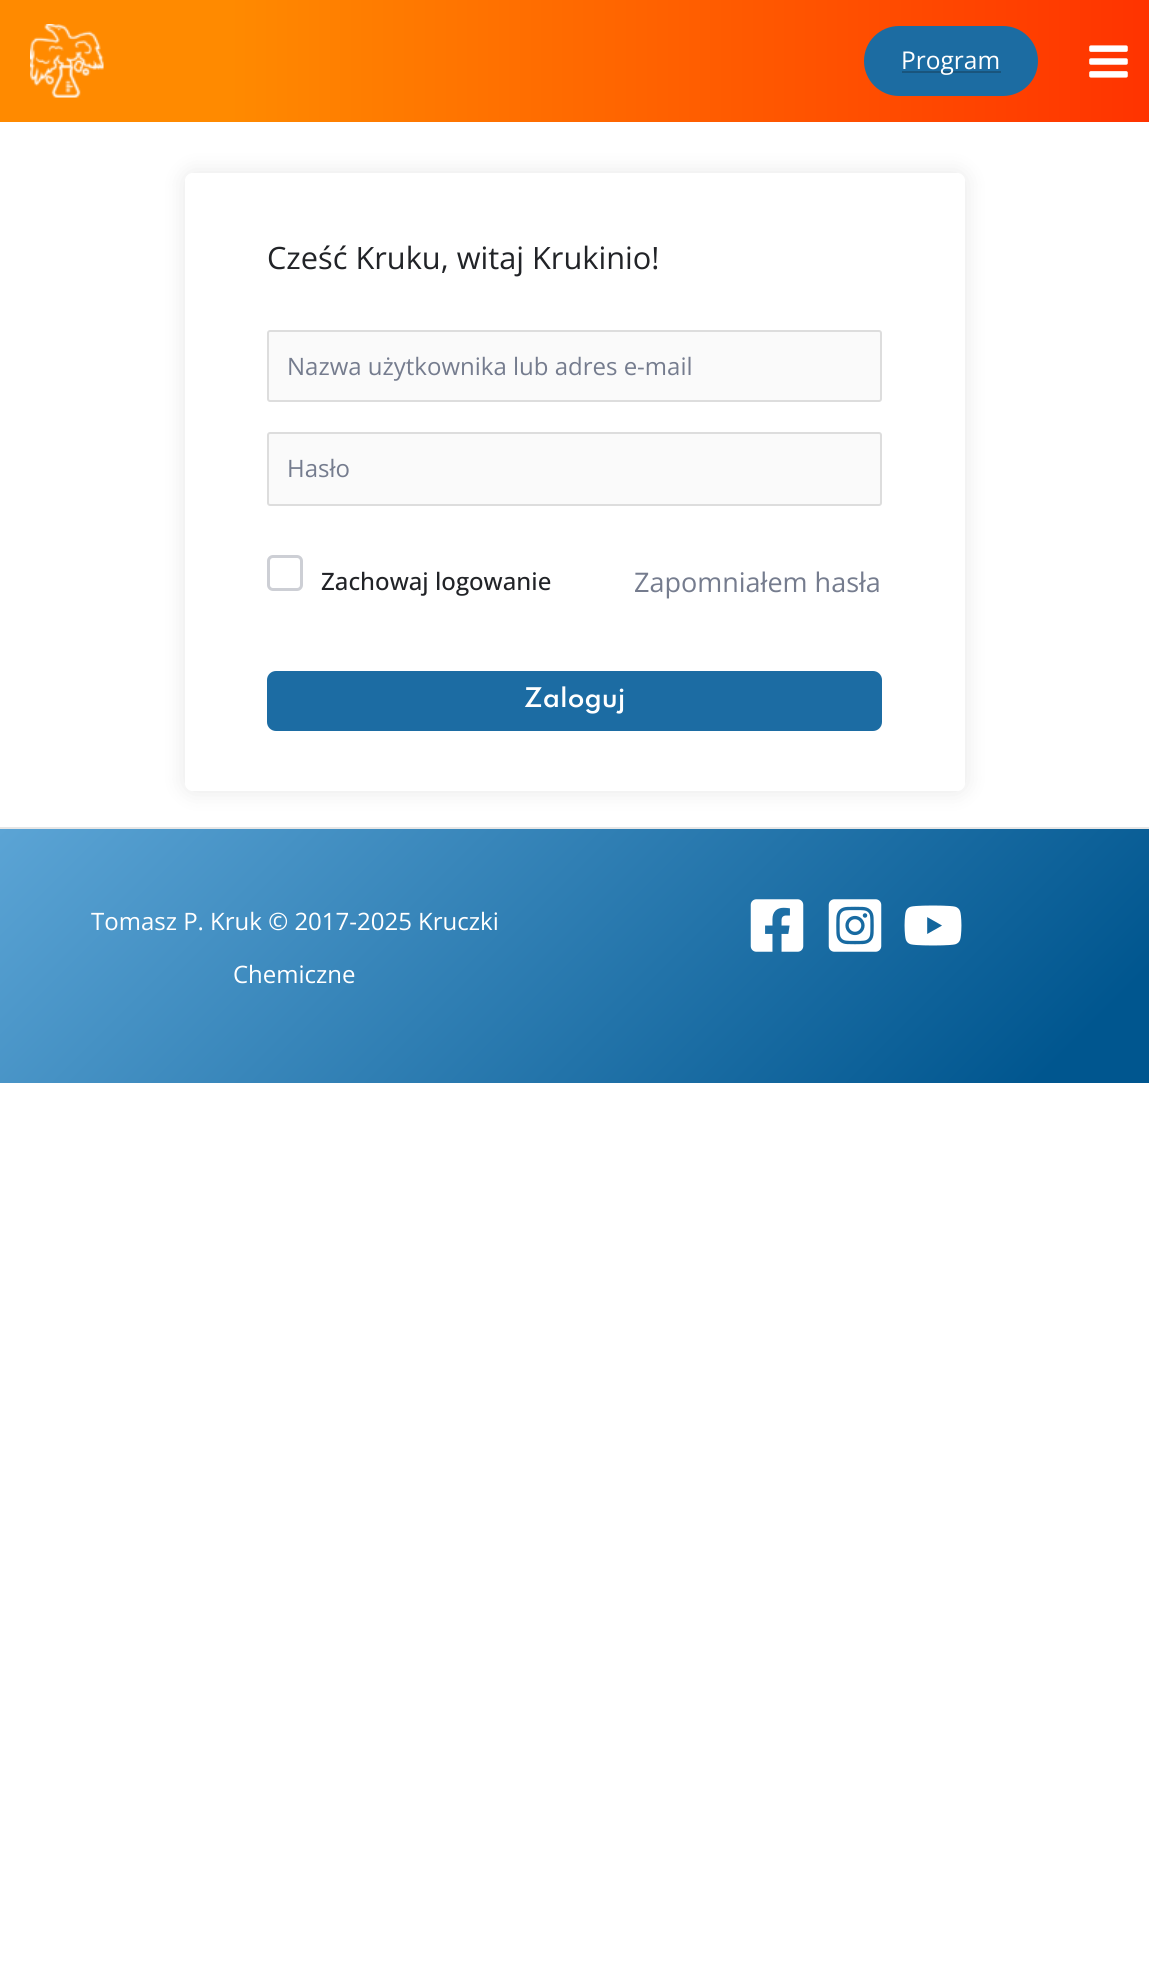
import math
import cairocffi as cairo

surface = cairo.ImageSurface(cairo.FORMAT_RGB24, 1149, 1986)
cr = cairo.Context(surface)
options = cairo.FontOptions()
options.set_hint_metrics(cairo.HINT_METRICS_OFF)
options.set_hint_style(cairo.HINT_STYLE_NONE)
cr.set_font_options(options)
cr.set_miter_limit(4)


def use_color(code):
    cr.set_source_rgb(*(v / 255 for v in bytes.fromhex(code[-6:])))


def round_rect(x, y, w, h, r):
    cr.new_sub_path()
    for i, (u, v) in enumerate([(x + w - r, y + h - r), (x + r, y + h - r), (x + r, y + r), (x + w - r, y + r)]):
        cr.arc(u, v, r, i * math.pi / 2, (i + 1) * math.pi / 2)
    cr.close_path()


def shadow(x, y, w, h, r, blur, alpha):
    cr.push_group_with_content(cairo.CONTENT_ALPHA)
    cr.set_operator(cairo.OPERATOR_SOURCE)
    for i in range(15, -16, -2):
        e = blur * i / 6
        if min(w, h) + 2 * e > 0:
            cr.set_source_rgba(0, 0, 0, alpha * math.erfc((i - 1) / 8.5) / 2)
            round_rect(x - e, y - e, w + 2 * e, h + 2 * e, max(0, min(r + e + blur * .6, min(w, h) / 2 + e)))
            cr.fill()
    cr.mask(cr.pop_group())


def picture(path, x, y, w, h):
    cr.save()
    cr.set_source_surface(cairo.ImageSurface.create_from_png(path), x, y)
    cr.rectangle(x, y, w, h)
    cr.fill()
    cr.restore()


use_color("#ffffff")
cr.paint()
gradient = cairo.LinearGradient(0, 61, 1149, 61)
gradient.add_color_stop_rgba(0.2, 1, 0.541, 0, 1)
gradient.add_color_stop_rgba(1, 1, 0.2, 0, 1)
cr.set_source(gradient)
cr.rectangle(0, 0, 1149, 122)
cr.fill()
picture("img1.png", 30, 24, 74, 74)
use_color("#1c6ca2")
round_rect(864, 26, 174, 70, 35)
cr.fill()
use_color("#19557d")
cr.rectangle(902, 71, 99, 2)
cr.fill()
cr.select_font_face("Open Sans")
cr.set_font_size(24.5)
use_color("#ffffff")
cr.move_to(901, 69)
cr.show_text("Program")
picture("img2.png", 1089, 45, 39, 33)
cr.save()
cr.set_fill_rule(cairo.FILL_RULE_EVEN_ODD)
cr.new_path()
cr.move_to(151, 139)
cr.line_to(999, 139)
cr.line_to(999, 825)
cr.line_to(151, 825)
cr.close_path()
cr.move_to(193, 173)
cr.line_to(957, 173)
cr.curve_to(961.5, 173, 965, 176.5, 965, 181)
cr.line_to(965, 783)
cr.curve_to(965, 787.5, 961.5, 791, 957, 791)
cr.line_to(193, 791)
cr.curve_to(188.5, 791, 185, 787.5, 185, 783)
cr.line_to(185, 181)
cr.curve_to(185, 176.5, 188.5, 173, 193, 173)
cr.close_path()
cr.clip()
use_color("#000000")
shadow(185, 173, 780, 618, 8, 11, 0.1)
cr.restore()
cr.set_font_size(30.75)
use_color("#212327")
cr.move_to(267, 269)
cr.show_text("Cześć Kruku, witaj Krukinio!")
use_color("#fafafa")
round_rect(268, 331, 613, 70, 2)
cr.fill_preserve()
use_color("#dddddd")
cr.stroke()
cr.set_font_size(24)
use_color("#757c8e")
cr.move_to(287, 375)
cr.show_text("Nazwa użytkownika lub adres e-mail")
use_color("#fafafa")
round_rect(268, 433, 613, 72, 2)
cr.fill_preserve()
use_color("#dddddd")
cr.stroke()
use_color("#757c8e")
cr.move_to(287, 477)
cr.show_text("Hasło")
round_rect(268.5, 556.5, 33, 33, 4.5)
use_color("#cdcfd5")
cr.set_line_width(3)
cr.stroke()
cr.select_font_face("Open Sans Medium")
use_color("#212327")
cr.move_to(321, 590)
cr.show_text("Zachowaj logowanie")
cr.select_font_face("Open Sans")
cr.set_font_size(27)
use_color("#757c8e")
cr.move_to(634, 592)
cr.show_text("Zapomniałem hasła")
use_color("#1c6ca3")
round_rect(268, 672, 613, 58, 8)
cr.fill_preserve()
cr.set_line_width(2)
cr.stroke()
cr.select_font_face("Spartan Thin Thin")
cr.set_font_size(24)
use_color("#ffffff")
cr.move_to(524, 707)
cr.show_text("Zaloguj")
gradient = cairo.LinearGradient(223, 605, 926, 1307)
gradient.add_color_stop_rgba(0, 0.357, 0.643, 0.835, 1)
gradient.add_color_stop_rgba(0.92, 0, 0.337, 0.561, 1)
cr.set_source(gradient)
cr.rectangle(0, 829, 1149, 254)
cr.fill()
use_color("#e6e6e6")
cr.rectangle(0, 827, 1149, 2)
cr.fill()
cr.select_font_face("Open Sans")
use_color("#ffffff")
cr.move_to(91, 930)
cr.show_text("Tomasz P. Kruk © 2017-2025 Kruczki")
cr.move_to(233, 983)
cr.show_text("Chemiczne")
picture("img3.png", 750, 899, 54, 53)
picture("img4.png", 828, 899, 54, 53)
picture("img5.png", 904, 905, 58, 41)
surface.write_to_png("result.png")
